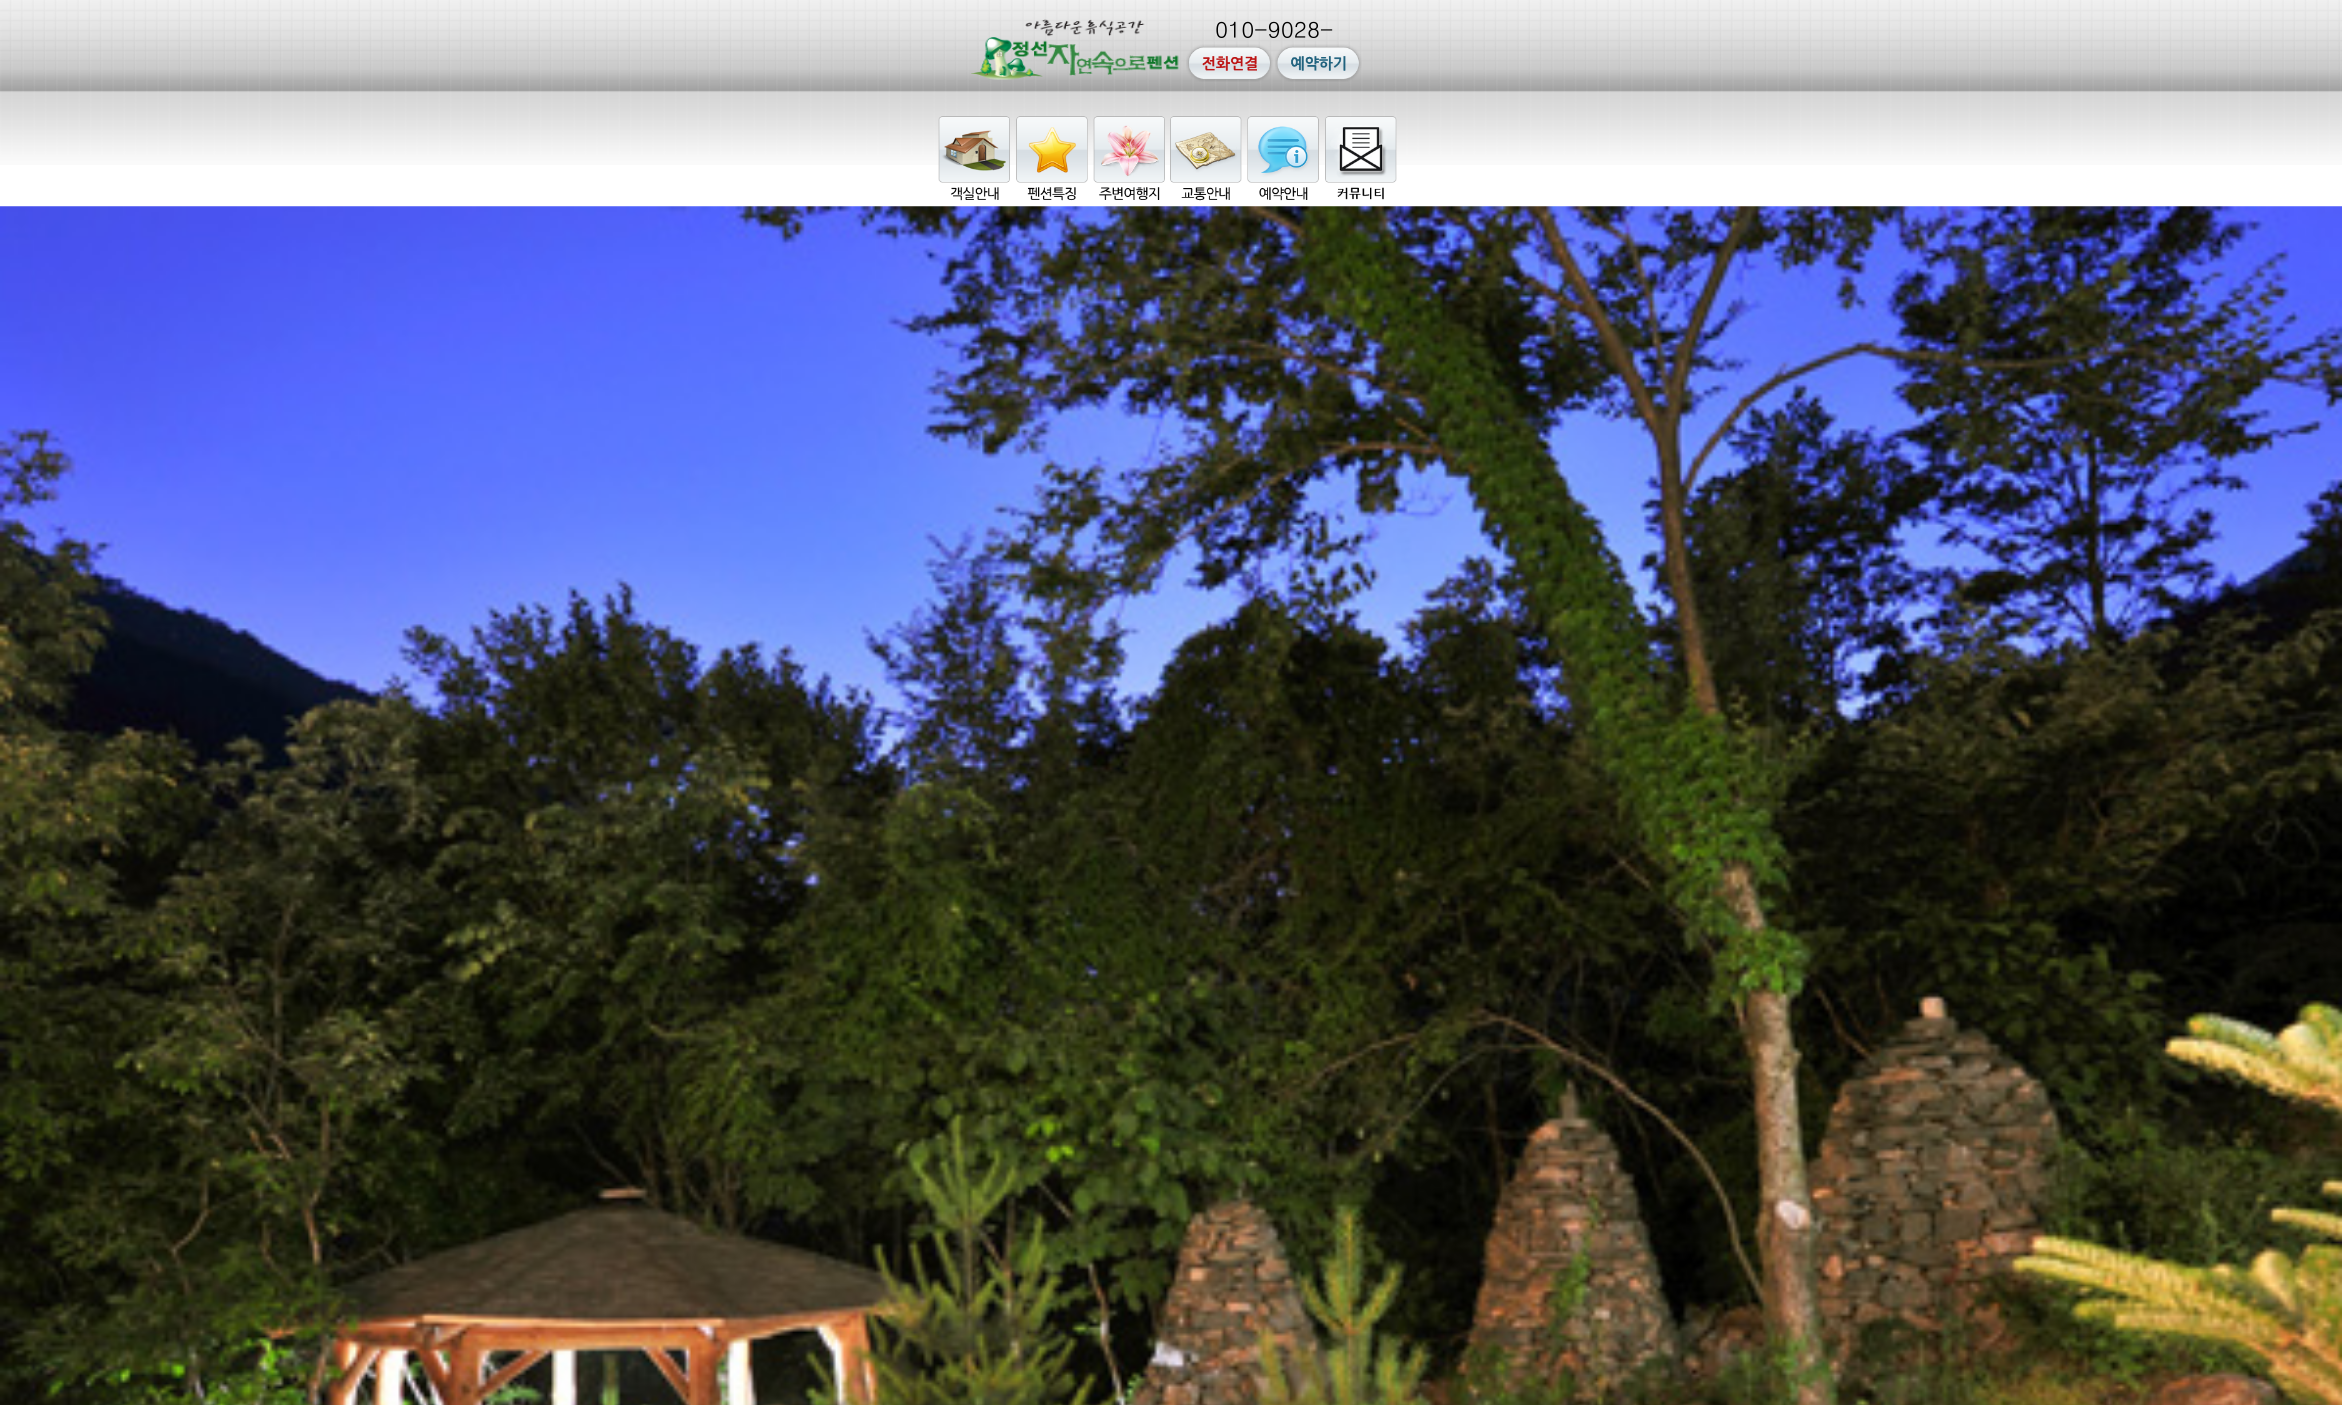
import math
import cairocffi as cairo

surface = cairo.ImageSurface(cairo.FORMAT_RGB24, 2342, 1405)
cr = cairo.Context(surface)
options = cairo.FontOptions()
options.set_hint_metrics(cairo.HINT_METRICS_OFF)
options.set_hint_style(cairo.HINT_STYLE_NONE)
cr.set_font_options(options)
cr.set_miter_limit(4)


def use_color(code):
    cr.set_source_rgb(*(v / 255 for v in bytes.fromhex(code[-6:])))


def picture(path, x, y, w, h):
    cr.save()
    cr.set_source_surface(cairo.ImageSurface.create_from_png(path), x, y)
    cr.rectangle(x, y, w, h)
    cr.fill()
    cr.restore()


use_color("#ffffff")
cr.paint()
picture("img1.png", 0, 0, 2342, 165)
picture("img2.png", 971, 19, 208, 61)
cr.select_font_face("Dotum")
cr.set_font_size(22.5)
use_color("#000000")
cr.move_to(1215, 38)
cr.show_text("010-9028-")
picture("img3.png", 1186, 44, 87, 38)
picture("img4.png", 1275, 44, 87, 38)
picture("img5.png", 938, 116, 72, 85)
picture("img6.png", 1016, 116, 72, 85)
picture("img7.png", 1093, 116, 72, 84)
picture("img8.png", 1170, 116, 72, 85)
picture("img9.png", 1247, 116, 72, 85)
picture("img10.png", 1325, 116, 72, 84)
picture("img11.png", 0, 206, 2342, 1199)
surface.write_to_png("result.png")
